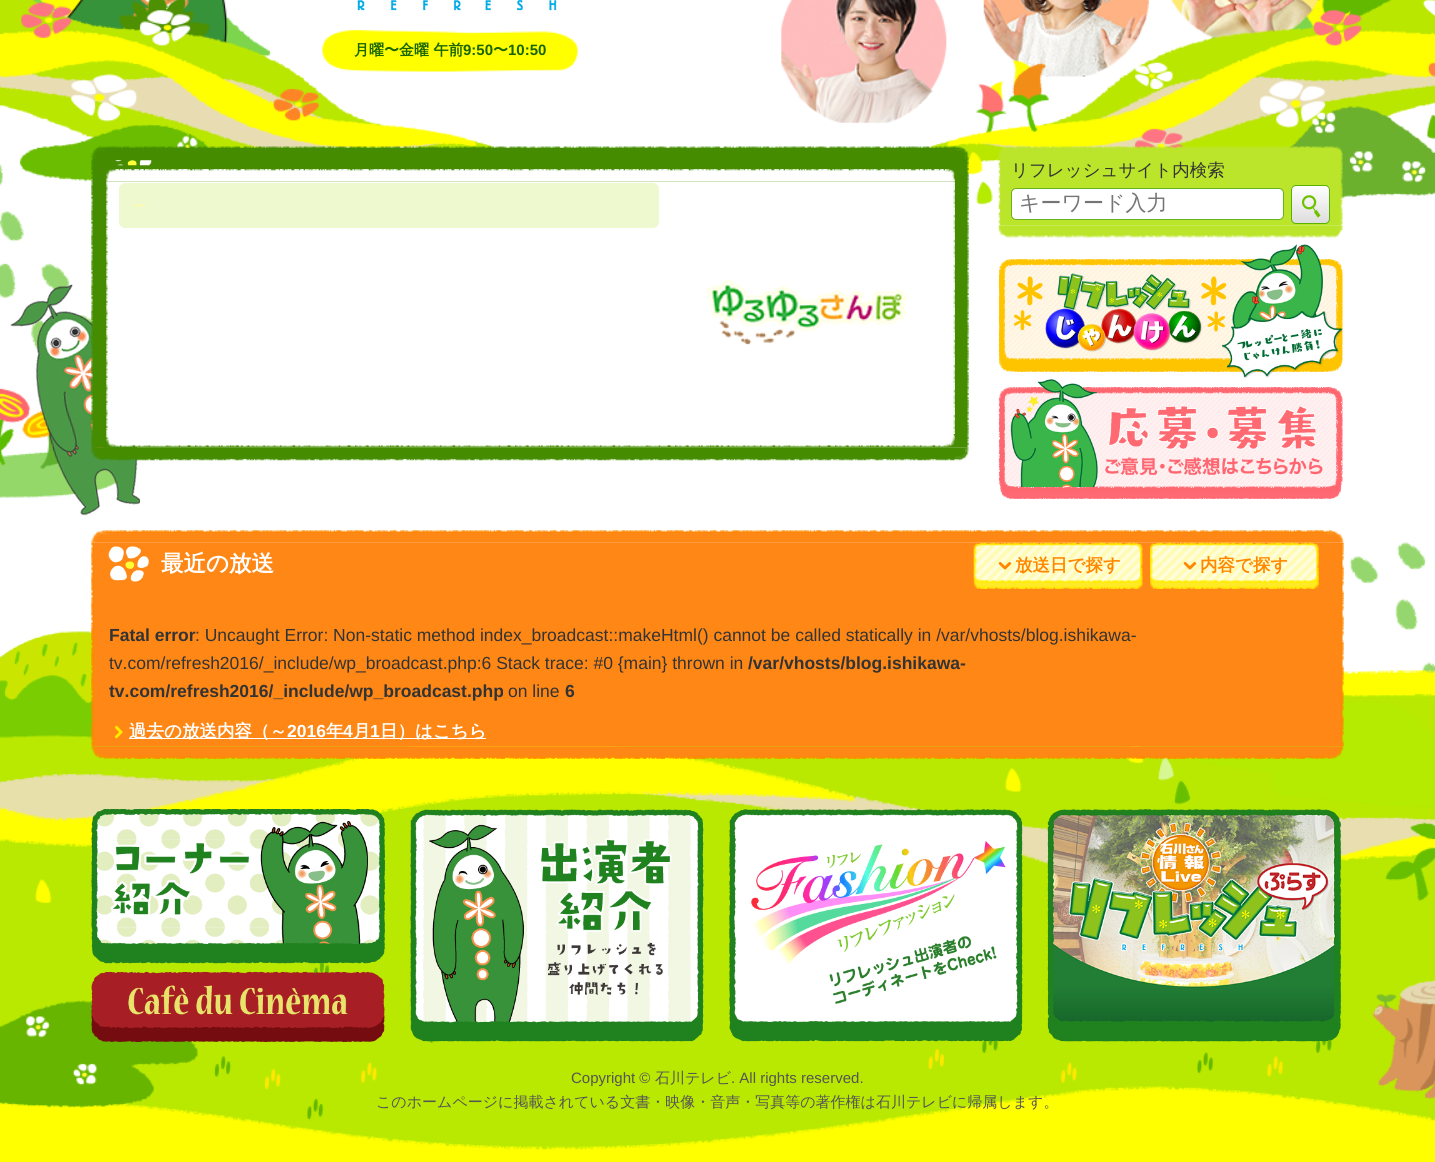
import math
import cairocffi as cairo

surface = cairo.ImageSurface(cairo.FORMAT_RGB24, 1435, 1162)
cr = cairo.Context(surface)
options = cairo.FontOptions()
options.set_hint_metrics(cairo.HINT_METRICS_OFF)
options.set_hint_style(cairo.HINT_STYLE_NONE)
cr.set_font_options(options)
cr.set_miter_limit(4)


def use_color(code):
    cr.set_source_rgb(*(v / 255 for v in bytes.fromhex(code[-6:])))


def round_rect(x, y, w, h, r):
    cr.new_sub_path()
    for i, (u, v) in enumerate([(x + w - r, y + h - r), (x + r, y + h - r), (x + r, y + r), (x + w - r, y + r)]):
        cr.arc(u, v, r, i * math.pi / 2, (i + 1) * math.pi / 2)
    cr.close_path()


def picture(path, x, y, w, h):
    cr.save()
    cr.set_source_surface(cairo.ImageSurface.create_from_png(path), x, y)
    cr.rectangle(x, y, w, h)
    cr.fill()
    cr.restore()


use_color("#ffffff")
cr.paint()
picture("img1.png", 0, 164, 1435, 935)
picture("img3.png", 32, 0, 1360, 57)
picture("img4.png", 65, 0, 163, 43)
picture("img5.png", 357, 0, 200, 11)
picture("img6.png", 781, 0, 538, 123)
picture("img7.png", 322, 30, 256, 42)
cr.select_font_face("WenQuanYi Zen Hei", cairo.FONT_SLANT_NORMAL, cairo.FONT_WEIGHT_BOLD)
cr.set_font_size(15)
use_color("#196600")
cr.move_to(354, 55)
cr.show_text("月曜〜金曜 午前")
cr.select_font_face("Liberation Sans", cairo.FONT_SLANT_NORMAL, cairo.FONT_WEIGHT_BOLD)
cr.move_to(463, 55)
cr.show_text("9:50")
cr.select_font_face("WenQuanYi Zen Hei", cairo.FONT_SLANT_NORMAL, cairo.FONT_WEIGHT_BOLD)
cr.move_to(493, 55)
cr.show_text("〜")
cr.select_font_face("Liberation Sans", cairo.FONT_SLANT_NORMAL, cairo.FONT_WEIGHT_BOLD)
cr.move_to(508, 55)
cr.show_text("10:50")
picture("img2.png", 0, 0, 1435, 205)
picture("img8.png", 0, 631, 1435, 531)
picture("img9.png", 10, 284, 130, 232)
picture("img10.png", 91, 159, 878, 289)
picture("img11.png", 91, 146, 878, 13)
picture("img12.png", 115, 160, 37, 6)
picture("img13.png", 106, 181, 849, 253)
picture("img14.png", 106, 169, 849, 13)
use_color("#eef9d0")
round_rect(119, 183, 540, 45, 6)
cr.fill()
picture("img15.png", 136, 204, 6, 3)
picture("img16.png", 131, 204, 5, 3)
picture("img17.png", 141, 204, 5, 3)
picture("img18.png", 707, 280, 200, 65)
picture("img19.png", 106, 434, 849, 13)
picture("img20.png", 91, 447, 878, 14)
picture("img21.png", 998, 159, 345, 67)
picture("img22.png", 998, 146, 345, 13)
cr.select_font_face("WenQuanYi Zen Hei Medium")
cr.set_font_size(17.5)
use_color("#333333")
cr.move_to(1011, 176)
cr.show_text("リフレッシュサイト内検索")
use_color("#ffffff")
round_rect(1011.5, 188.5, 272, 31, 4.5)
cr.fill_preserve()
use_color("#6ab31d")
cr.set_line_width(1)
cr.stroke()
cr.set_font_size(21)
use_color("#757575")
cr.move_to(1019, 210)
cr.show_text("キーワード入力")
cr.save()
round_rect(1291, 185, 39, 39, 5)
cr.clip()
gradient = cairo.LinearGradient(1311, 186, 1311, 223)
gradient.add_color_stop_rgba(0, 1, 1, 1, 1)
gradient.add_color_stop_rgba(1, 0.867, 0.867, 0.867, 1)
cr.set_source(gradient)
cr.rectangle(1291, 186, 39, 37)
cr.fill()
cr.restore()
round_rect(1291.5, 185.5, 38, 38, 4.5)
use_color("#59b200")
cr.stroke()
picture("img23.png", 1302, 195, 19, 23)
picture("img24.png", 998, 225, 345, 13)
picture("img25.png", 998, 244, 345, 134)
picture("img26.png", 998, 379, 345, 120)
picture("img27.png", 91, 542, 1253, 205)
picture("img28.png", 91, 530, 1253, 13)
picture("img29.png", 108, 546, 41, 36)
cr.select_font_face("WenQuanYi Zen Hei", cairo.FONT_SLANT_NORMAL, cairo.FONT_WEIGHT_BOLD)
cr.set_font_size(22.5)
use_color("#ffffff")
cr.move_to(161, 571)
cr.show_text("最近の放送")
picture("img30.png", 973, 542, 170, 47)
picture("img31.png", 998, 561, 14, 9)
cr.set_font_size(17.5)
use_color("#ff8700")
cr.move_to(1015, 571)
cr.show_text("放送日で探す")
picture("img32.png", 1150, 542, 169, 47)
picture("img33.png", 1183, 561, 14, 9)
cr.move_to(1200, 571)
cr.show_text("内容で探す")
cr.select_font_face("Liberation Sans", cairo.FONT_SLANT_NORMAL, cairo.FONT_WEIGHT_BOLD)
use_color("#333333")
cr.move_to(109, 641)
cr.show_text("Fatal error")
cr.select_font_face("Liberation Sans")
cr.move_to(195, 641)
cr.show_text(": Uncaught Error: Non-static method index_broadcast::makeHtml() cannot be called statically in /var/vhosts/blog.ishikawa-")
cr.move_to(109, 669)
cr.show_text("tv.com/refresh2016/_include/wp_broadcast.php:6 Stack trace: #0 {main} thrown in")
cr.select_font_face("Liberation Sans", cairo.FONT_SLANT_NORMAL, cairo.FONT_WEIGHT_BOLD)
cr.move_to(748, 669)
cr.show_text("/var/vhosts/blog.ishikawa-")
cr.move_to(109, 697)
cr.show_text("tv.com/refresh2016/_include/wp_broadcast.php")
cr.select_font_face("Liberation Sans")
cr.move_to(508, 697)
cr.show_text("on line")
cr.select_font_face("Liberation Sans", cairo.FONT_SLANT_NORMAL, cairo.FONT_WEIGHT_BOLD)
cr.move_to(565, 697)
cr.show_text("6")
picture("img34.png", 114, 725, 9, 14)
use_color("#ffffff")
cr.rectangle(129, 738, 357, 1)
cr.fill()
cr.select_font_face("WenQuanYi Zen Hei", cairo.FONT_SLANT_NORMAL, cairo.FONT_WEIGHT_BOLD)
cr.move_to(129, 737)
cr.show_text("過去の放送内容（～")
cr.select_font_face("Liberation Sans", cairo.FONT_SLANT_NORMAL, cairo.FONT_WEIGHT_BOLD)
cr.move_to(287, 737)
cr.show_text("2016")
cr.select_font_face("WenQuanYi Zen Hei", cairo.FONT_SLANT_NORMAL, cairo.FONT_WEIGHT_BOLD)
cr.move_to(326, 737)
cr.show_text("年")
cr.select_font_face("Liberation Sans", cairo.FONT_SLANT_NORMAL, cairo.FONT_WEIGHT_BOLD)
cr.move_to(343, 737)
cr.show_text("4")
cr.select_font_face("WenQuanYi Zen Hei", cairo.FONT_SLANT_NORMAL, cairo.FONT_WEIGHT_BOLD)
cr.move_to(353, 737)
cr.show_text("月")
cr.select_font_face("Liberation Sans", cairo.FONT_SLANT_NORMAL, cairo.FONT_WEIGHT_BOLD)
cr.move_to(370, 737)
cr.show_text("1")
cr.select_font_face("WenQuanYi Zen Hei", cairo.FONT_SLANT_NORMAL, cairo.FONT_WEIGHT_BOLD)
cr.move_to(380, 737)
cr.show_text("日）はこちら")
picture("img35.png", 91, 746, 1253, 13)
picture("img36.png", 91, 809, 294, 155)
picture("img37.png", 91, 971, 294, 71)
picture("img38.png", 410, 809, 294, 233)
picture("img39.png", 729, 809, 294, 233)
picture("img40.png", 1047, 809, 295, 233)
cr.select_font_face("Liberation Sans")
cr.set_font_size(15)
use_color("#555555")
cr.move_to(571, 1083)
cr.show_text("Copyright ©")
cr.select_font_face("WenQuanYi Zen Hei Medium")
cr.move_to(655, 1083)
cr.show_text("石川テレビ")
cr.select_font_face("Liberation Sans")
cr.move_to(731, 1083)
cr.show_text(". All rights reserved.")
cr.select_font_face("WenQuanYi Zen Hei Medium")
cr.move_to(376, 1107)
cr.show_text("このホームページに掲載されている文書・映像・音声・写真等の著作権は石川テレビに帰属します。")
surface.write_to_png("result.png")
